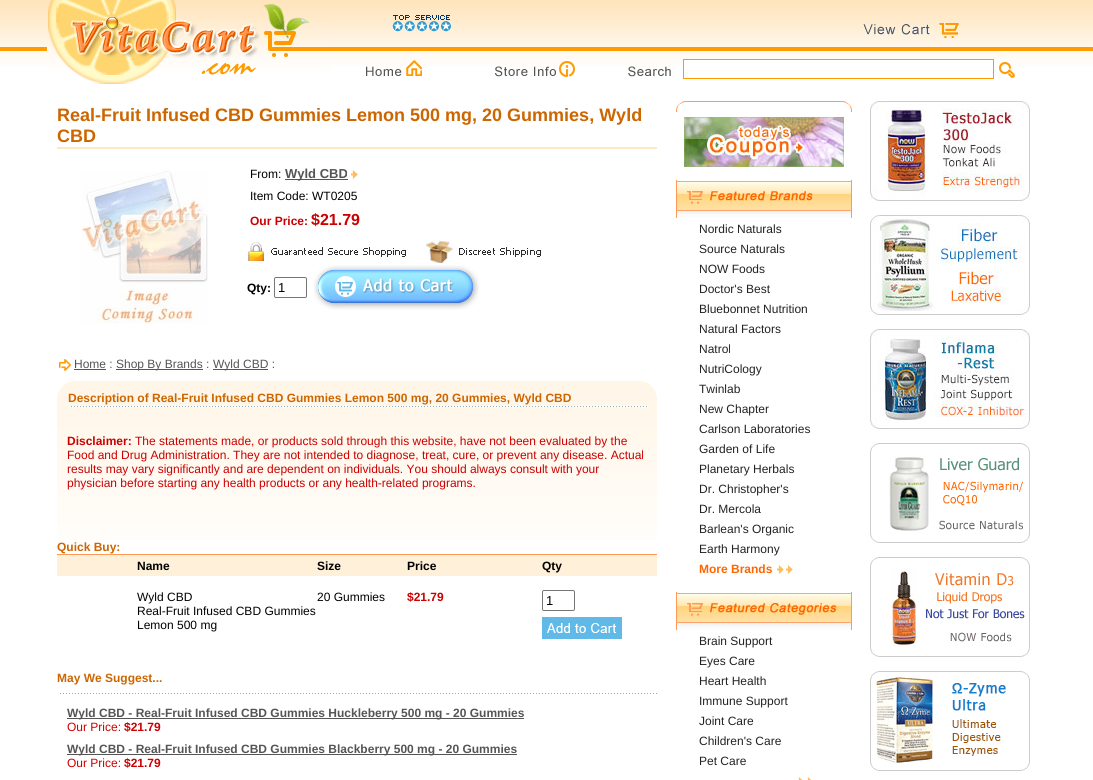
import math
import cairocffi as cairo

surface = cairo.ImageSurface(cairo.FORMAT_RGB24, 1093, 780)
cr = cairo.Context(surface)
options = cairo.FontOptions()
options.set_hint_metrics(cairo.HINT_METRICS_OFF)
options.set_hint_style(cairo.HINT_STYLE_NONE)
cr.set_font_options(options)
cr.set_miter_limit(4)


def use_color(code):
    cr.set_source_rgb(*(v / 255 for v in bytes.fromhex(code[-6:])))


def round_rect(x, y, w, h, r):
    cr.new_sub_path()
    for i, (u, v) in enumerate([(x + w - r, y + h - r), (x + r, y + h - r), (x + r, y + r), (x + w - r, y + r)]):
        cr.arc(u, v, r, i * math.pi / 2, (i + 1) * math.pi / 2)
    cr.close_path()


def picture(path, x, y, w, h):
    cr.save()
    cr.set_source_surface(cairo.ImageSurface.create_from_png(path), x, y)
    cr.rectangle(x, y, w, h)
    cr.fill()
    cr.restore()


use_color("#ffffff")
cr.paint()
picture("img1.png", 0, 0, 1093, 66)
picture("img2.png", 47, 0, 284, 84)
picture("img3.png", 392, 15, 59, 17)
picture("img4.png", 863, 23, 96, 15)
picture("img5.png", 366, 60, 56, 16)
picture("img6.png", 495, 61, 80, 16)
picture("img7.png", 628, 66, 43, 11)
use_color("#ffffff")
cr.rectangle(684, 60, 309, 6)
cr.fill()
cr.rectangle(683.5, 59.5, 310, 19)
use_color("#ff9a00")
cr.set_line_width(1)
cr.stroke()
picture("img8.png", 999, 62, 16, 16)
cr.select_font_face("Liberation Sans", cairo.FONT_SLANT_NORMAL, cairo.FONT_WEIGHT_BOLD)
cr.set_font_size(18)
use_color("#cc6600")
cr.move_to(57, 121)
cr.show_text("Real-Fruit Infused CBD Gummies Lemon 500 mg, 20 Gummies, Wyld")
cr.move_to(57, 142)
cr.show_text("CBD")
use_color("#fee7c5")
cr.rectangle(57, 147, 600, 2)
cr.fill()
picture("img9.png", 81, 171, 127, 153)
cr.select_font_face("Liberation Sans")
cr.set_font_size(12)
use_color("#000000")
cr.move_to(250, 178)
cr.show_text("From:")
use_color("#555555")
cr.rectangle(285, 179, 63, 1)
cr.fill()
cr.select_font_face("Liberation Sans", cairo.FONT_SLANT_NORMAL, cairo.FONT_WEIGHT_BOLD)
cr.set_font_size(13)
cr.move_to(285, 178)
cr.show_text("Wyld CBD")
picture("img10.png", 351, 170, 7, 9)
cr.select_font_face("Liberation Sans")
cr.set_font_size(12)
use_color("#000000")
cr.move_to(250, 200)
cr.show_text("Item Code: WT0205")
cr.select_font_face("Liberation Sans", cairo.FONT_SLANT_NORMAL, cairo.FONT_WEIGHT_BOLD)
use_color("#cc0000")
cr.move_to(250, 225)
cr.show_text("Our Price:")
cr.set_font_size(16)
cr.move_to(311, 225)
cr.show_text("$21.79")
picture("img11.png", 248, 242, 158, 19)
picture("img12.png", 426, 241, 115, 22)
cr.set_font_size(12)
use_color("#000000")
cr.move_to(247, 292)
cr.show_text("Qty:")
round_rect(274.5, 277.5, 32, 20, 1.5)
use_color("#767676")
cr.stroke()
cr.select_font_face("Liberation Sans")
cr.set_font_size(13)
use_color("#000000")
cr.move_to(278, 292)
cr.show_text("1")
picture("img13.png", 314, 265, 165, 45)
picture("img14.png", 59, 359, 12, 12)
cr.set_font_size(12)
use_color("#555555")
cr.move_to(74, 368)
cr.show_text("Home :")
cr.rectangle(74, 369, 32, 1)
cr.fill()
cr.rectangle(116, 369, 87, 1)
cr.fill()
cr.move_to(116, 368)
cr.show_text("Shop By Brands :")
cr.rectangle(213, 369, 55, 1)
cr.fill()
cr.move_to(213, 368)
cr.show_text("Wyld CBD :")
picture("img15.png", 57, 381, 600, 159)
cr.select_font_face("Liberation Sans", cairo.FONT_SLANT_NORMAL, cairo.FONT_WEIGHT_BOLD)
use_color("#cc6600")
cr.move_to(68, 402)
cr.show_text("Description of Real-Fruit Infused CBD Gummies Lemon 500 mg, 20 Gummies, Wyld CBD")
picture("img16.png", 68, 406, 580, 1)
use_color("#cc0000")
cr.move_to(67, 445)
cr.show_text("Disclaimer:")
cr.select_font_face("Liberation Sans")
cr.move_to(135, 445)
cr.show_text("The statements made, or products sold through this website, have not been evaluated by the")
cr.move_to(67, 459)
cr.show_text("Food and Drug Administration. They are not intended to diagnose, treat, cure, or prevent any disease. Actual")
cr.move_to(67, 473)
cr.show_text("results may vary significantly and are dependent on individuals. You should always consult with your")
cr.move_to(67, 487)
cr.show_text("physician before starting any health products or any health-related programs.")
cr.select_font_face("Liberation Sans", cairo.FONT_SLANT_NORMAL, cairo.FONT_WEIGHT_BOLD)
use_color("#cc6600")
cr.move_to(57, 551)
cr.show_text("Quick Buy:")
use_color("#ff9955")
cr.rectangle(57, 554, 600, 1)
cr.fill()
use_color("#fff0d9")
cr.rectangle(57, 555, 600, 21)
cr.fill()
use_color("#000000")
cr.move_to(137, 570)
cr.show_text("Name")
cr.move_to(317, 570)
cr.show_text("Size")
cr.move_to(407, 570)
cr.show_text("Price")
cr.move_to(542, 570)
cr.show_text("Qty")
cr.select_font_face("Liberation Sans")
cr.move_to(137, 601)
cr.show_text("Wyld CBD")
cr.move_to(137, 615)
cr.show_text("Real-Fruit Infused CBD Gummies")
cr.move_to(137, 629)
cr.show_text("Lemon 500 mg")
cr.move_to(317, 601)
cr.show_text("20 Gummies")
cr.select_font_face("Liberation Sans", cairo.FONT_SLANT_NORMAL, cairo.FONT_WEIGHT_BOLD)
use_color("#cc0000")
cr.move_to(407, 601)
cr.show_text("$21.79")
round_rect(542.5, 590.5, 32, 20, 1.5)
use_color("#767676")
cr.stroke()
cr.select_font_face("Liberation Sans")
cr.set_font_size(13)
use_color("#000000")
cr.move_to(546, 605)
cr.show_text("1")
picture("img17.png", 542, 617, 80, 22)
cr.select_font_face("Liberation Sans", cairo.FONT_SLANT_NORMAL, cairo.FONT_WEIGHT_BOLD)
cr.set_font_size(12)
use_color("#cc6600")
cr.move_to(57, 682)
cr.show_text("May We Suggest...")
picture("img18.png", 60, 693, 597, 1)
use_color("#555555")
cr.rectangle(67, 718, 457, 1)
cr.fill()
cr.move_to(67, 717)
cr.show_text("Wyld CBD - Real-Fruit Infused CBD Gummies Huckleberry 500 mg - 20 Gummies")
cr.select_font_face("Liberation Sans")
use_color("#cc0000")
cr.move_to(67, 731)
cr.show_text("Our Price:")
cr.select_font_face("Liberation Sans", cairo.FONT_SLANT_NORMAL, cairo.FONT_WEIGHT_BOLD)
cr.move_to(124, 731)
cr.show_text("$21.79")
use_color("#555555")
cr.rectangle(67, 754, 450, 1)
cr.fill()
cr.move_to(67, 753)
cr.show_text("Wyld CBD - Real-Fruit Infused CBD Gummies Blackberry 500 mg - 20 Gummies")
cr.select_font_face("Liberation Sans")
use_color("#cc0000")
cr.move_to(67, 767)
cr.show_text("Our Price:")
cr.select_font_face("Liberation Sans", cairo.FONT_SLANT_NORMAL, cairo.FONT_WEIGHT_BOLD)
cr.move_to(124, 767)
cr.show_text("$21.79")
picture("img19.png", 676, 101, 176, 11)
picture("img20.png", 684, 117, 160, 50)
picture("img21.png", 676, 180, 176, 38)
cr.select_font_face("Liberation Sans")
use_color("#222222")
cr.move_to(699, 233)
cr.show_text("Nordic Naturals")
cr.move_to(699, 253)
cr.show_text("Source Naturals")
cr.move_to(699, 273)
cr.show_text("NOW Foods")
cr.move_to(699, 293)
cr.show_text("Doctor's Best")
cr.move_to(699, 313)
cr.show_text("Bluebonnet Nutrition")
cr.move_to(699, 333)
cr.show_text("Natural Factors")
cr.move_to(699, 353)
cr.show_text("Natrol")
cr.move_to(699, 373)
cr.show_text("NutriCology")
cr.move_to(699, 393)
cr.show_text("Twinlab")
cr.move_to(699, 413)
cr.show_text("New Chapter")
cr.move_to(699, 433)
cr.show_text("Carlson Laboratories")
cr.move_to(699, 453)
cr.show_text("Garden of Life")
cr.move_to(699, 473)
cr.show_text("Planetary Herbals")
cr.move_to(699, 493)
cr.show_text("Dr. Christopher's")
cr.move_to(699, 513)
cr.show_text("Dr. Mercola")
cr.move_to(699, 533)
cr.show_text("Barlean's Organic")
cr.move_to(699, 553)
cr.show_text("Earth Harmony")
cr.select_font_face("Liberation Sans", cairo.FONT_SLANT_NORMAL, cairo.FONT_WEIGHT_BOLD)
use_color("#ff6600")
cr.move_to(699, 573)
cr.show_text("More Brands")
picture("img10.png", 777, 565, 7, 9)
picture("img10.png", 786, 565, 7, 9)
picture("img22.png", 676, 592, 176, 38)
cr.select_font_face("Liberation Sans")
use_color("#222222")
cr.move_to(699, 645)
cr.show_text("Brain Support")
cr.move_to(699, 665)
cr.show_text("Eyes Care")
cr.move_to(699, 685)
cr.show_text("Heart Health")
cr.move_to(699, 705)
cr.show_text("Immune Support")
cr.move_to(699, 725)
cr.show_text("Joint Care")
cr.move_to(699, 745)
cr.show_text("Children's Care")
cr.move_to(699, 765)
cr.show_text("Pet Care")
picture("img23.png", 798, 777, 4, 3)
picture("img23.png", 807, 777, 4, 3)
picture("img24.png", 870, 101, 160, 100)
picture("img25.png", 870, 215, 160, 100)
picture("img26.png", 870, 329, 160, 100)
picture("img27.png", 870, 443, 160, 100)
picture("img28.png", 870, 557, 160, 100)
picture("img29.png", 870, 671, 160, 100)
surface.write_to_png("result.png")
